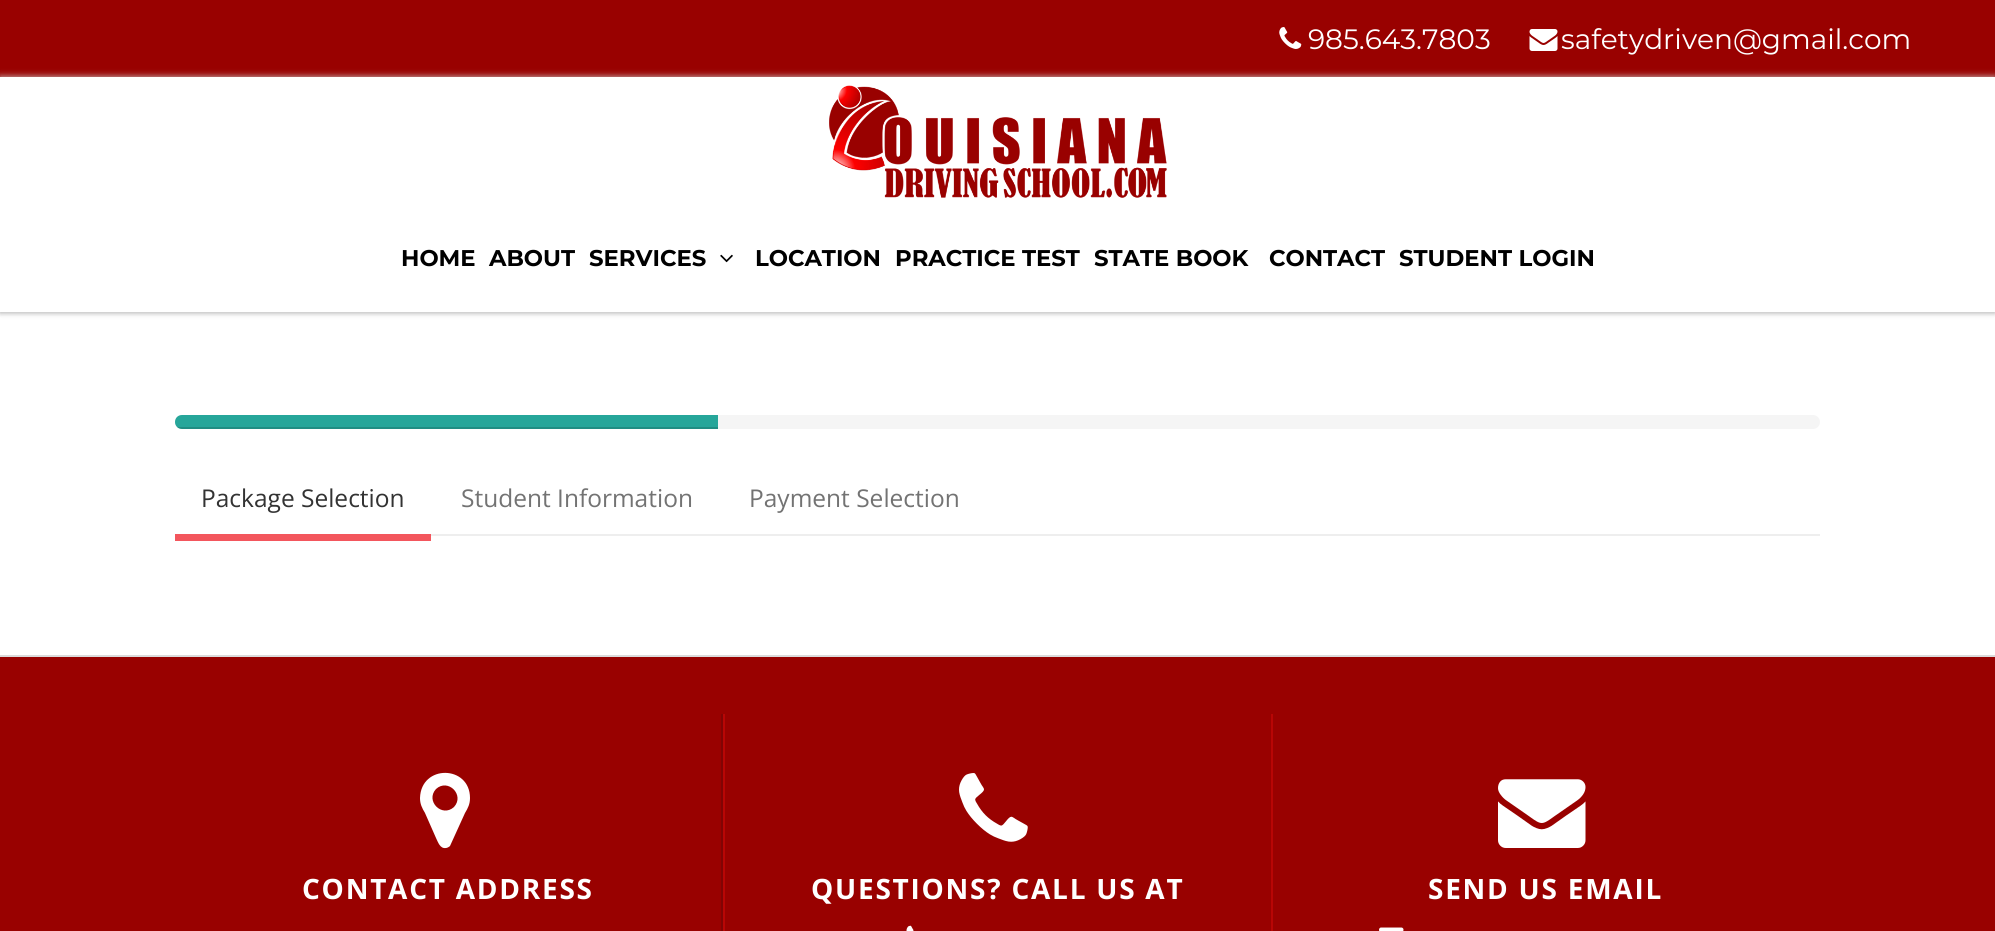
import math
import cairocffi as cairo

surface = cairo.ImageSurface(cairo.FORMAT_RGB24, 1995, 931)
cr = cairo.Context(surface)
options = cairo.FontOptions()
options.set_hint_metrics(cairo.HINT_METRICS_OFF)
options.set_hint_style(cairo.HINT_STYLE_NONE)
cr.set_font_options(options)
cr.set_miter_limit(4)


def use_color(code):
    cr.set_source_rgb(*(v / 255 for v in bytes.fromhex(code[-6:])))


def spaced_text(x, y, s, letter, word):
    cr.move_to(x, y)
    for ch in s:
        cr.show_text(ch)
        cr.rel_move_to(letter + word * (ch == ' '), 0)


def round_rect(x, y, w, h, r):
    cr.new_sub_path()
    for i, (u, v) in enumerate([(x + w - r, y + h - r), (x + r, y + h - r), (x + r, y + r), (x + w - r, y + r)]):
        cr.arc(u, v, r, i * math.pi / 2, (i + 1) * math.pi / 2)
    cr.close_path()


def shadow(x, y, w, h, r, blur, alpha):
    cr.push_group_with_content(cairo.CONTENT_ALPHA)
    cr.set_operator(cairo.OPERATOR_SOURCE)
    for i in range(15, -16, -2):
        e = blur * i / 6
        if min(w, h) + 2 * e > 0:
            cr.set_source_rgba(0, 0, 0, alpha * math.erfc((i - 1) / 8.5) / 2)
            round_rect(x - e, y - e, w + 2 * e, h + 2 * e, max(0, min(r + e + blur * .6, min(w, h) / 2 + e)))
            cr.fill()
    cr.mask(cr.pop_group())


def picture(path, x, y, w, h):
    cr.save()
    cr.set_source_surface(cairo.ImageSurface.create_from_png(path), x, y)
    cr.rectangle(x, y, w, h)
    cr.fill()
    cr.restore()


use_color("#ffffff")
cr.paint()
use_color("#000000")
shadow(0, 2, 1995, 311, 0, 2, 0.18)
shadow(0, 2, 1995, 311, 0, 2.5, 0.1)
use_color("#990100")
cr.rectangle(0, 0, 1995, 77)
cr.fill()
picture("img1.png", 1279, 27, 23, 22)
cr.select_font_face("Montserrat")
cr.set_font_size(28)
use_color("#ffffff")
cr.move_to(1308, 49)
cr.show_text("985.643.7803")
picture("img2.png", 1529, 29, 29, 22)
cr.move_to(1561, 49)
cr.show_text("safetydriven@gmail.com")
use_color("#cccccc")
shadow(0, 77, 1995, 235, 0, 3.5, 1)
use_color("#ffffff")
cr.rectangle(0, 77, 1995, 235)
cr.fill()
picture("img3.png", 829, 85, 338, 113)
cr.select_font_face("Montserrat", cairo.FONT_SLANT_NORMAL, cairo.FONT_WEIGHT_BOLD)
cr.set_font_size(22.75)
use_color("#000000")
cr.move_to(401, 266)
cr.show_text("HOME")
cr.move_to(489, 266)
cr.show_text("ABOUT")
cr.move_to(589, 266)
cr.show_text("SERVICES")
picture("img4.png", 720, 254, 13, 9)
cr.move_to(755, 266)
cr.show_text("LOCATION")
cr.move_to(895, 266)
cr.show_text("PRACTICE TEST")
cr.move_to(1094, 266)
cr.show_text("STATE BOOK")
cr.move_to(1269, 266)
cr.show_text("CONTACT")
cr.move_to(1399, 266)
cr.show_text("STUDENT LOGIN")
use_color("#f5f5f5")
round_rect(175, 415, 1645, 14, 7)
cr.fill()
use_color("#26a69a")
cr.new_path()
cr.move_to(182, 415)
cr.line_to(718, 415)
cr.line_to(718, 429)
cr.line_to(182, 429)
cr.curve_to(178, 429, 175, 426, 175, 422)
cr.curve_to(175, 418, 178, 415, 182, 415)
cr.close_path()
cr.fill()
cr.save()
round_rect(175, 415, 1645, 14, 7)
cr.clip()
cr.set_source_rgba(0, 0, 0, 0.15)
cr.rectangle(175, 427, 543, 2)
cr.fill()
cr.restore()
use_color("#f3565d")
cr.rectangle(175, 534, 256, 7)
cr.fill()
cr.select_font_face("Open Sans")
cr.set_font_size(24.5)
use_color("#333333")
cr.move_to(201, 507)
cr.show_text("Package Selection")
use_color("#737373")
cr.move_to(461, 507)
cr.show_text("Student Information")
cr.move_to(749, 507)
cr.show_text("Payment Selection")
use_color("#eeeeee")
cr.rectangle(431, 534, 1389, 2)
cr.fill()
use_color("#990100")
cr.rectangle(0, 657, 1995, 274)
cr.fill()
use_color("#dbdbdb")
cr.rectangle(0, 655, 1995, 2)
cr.fill()
use_color("#800404")
cr.rectangle(721, 714, 2, 217)
cr.fill()
use_color("#ffffff")
cr.new_path()
cr.move_to(454, 807)
cr.curve_to(465, 795, 448, 778, 436, 789)
cr.curve_to(425, 801, 442, 818, 454, 807)
cr.close_path()
cr.move_to(470, 798)
cr.curve_to(470, 804, 468, 808, 465, 813)
cr.line_to(450, 846)
cr.curve_to(449, 847, 447, 848, 446, 848)
cr.curve_to(440, 849, 438, 842, 436, 838)
cr.line_to(425, 813)
cr.curve_to(422, 808, 420, 804, 420, 798)
cr.curve_to(421, 764, 470, 765, 470, 798)
cr.close_path()
cr.fill()
cr.select_font_face("Open Sans", cairo.FONT_SLANT_NORMAL, cairo.FONT_WEIGHT_BOLD)
cr.set_font_size(28)
spaced_text(302, 899, "CONTACT ADDRESS", 1.75, 0)
use_color("#b80605")
cr.rectangle(1271, 714, 2, 217)
cr.fill()
cr.rectangle(723, 714, 2, 217)
cr.fill()
picture("img5.png", 959, 773, 69, 69)
use_color("#ffffff")
spaced_text(811, 899, "QUESTIONS? CALL US AT", 1.75, 0)
picture("img6.png", 906, 925, 8, 6)
picture("img7.png", 1498, 779, 88, 69)
spaced_text(1428, 899, "SEND US EMAIL", 1.75, 0)
picture("img8.png", 1379, 927, 25, 4)
surface.write_to_png("result.png")
